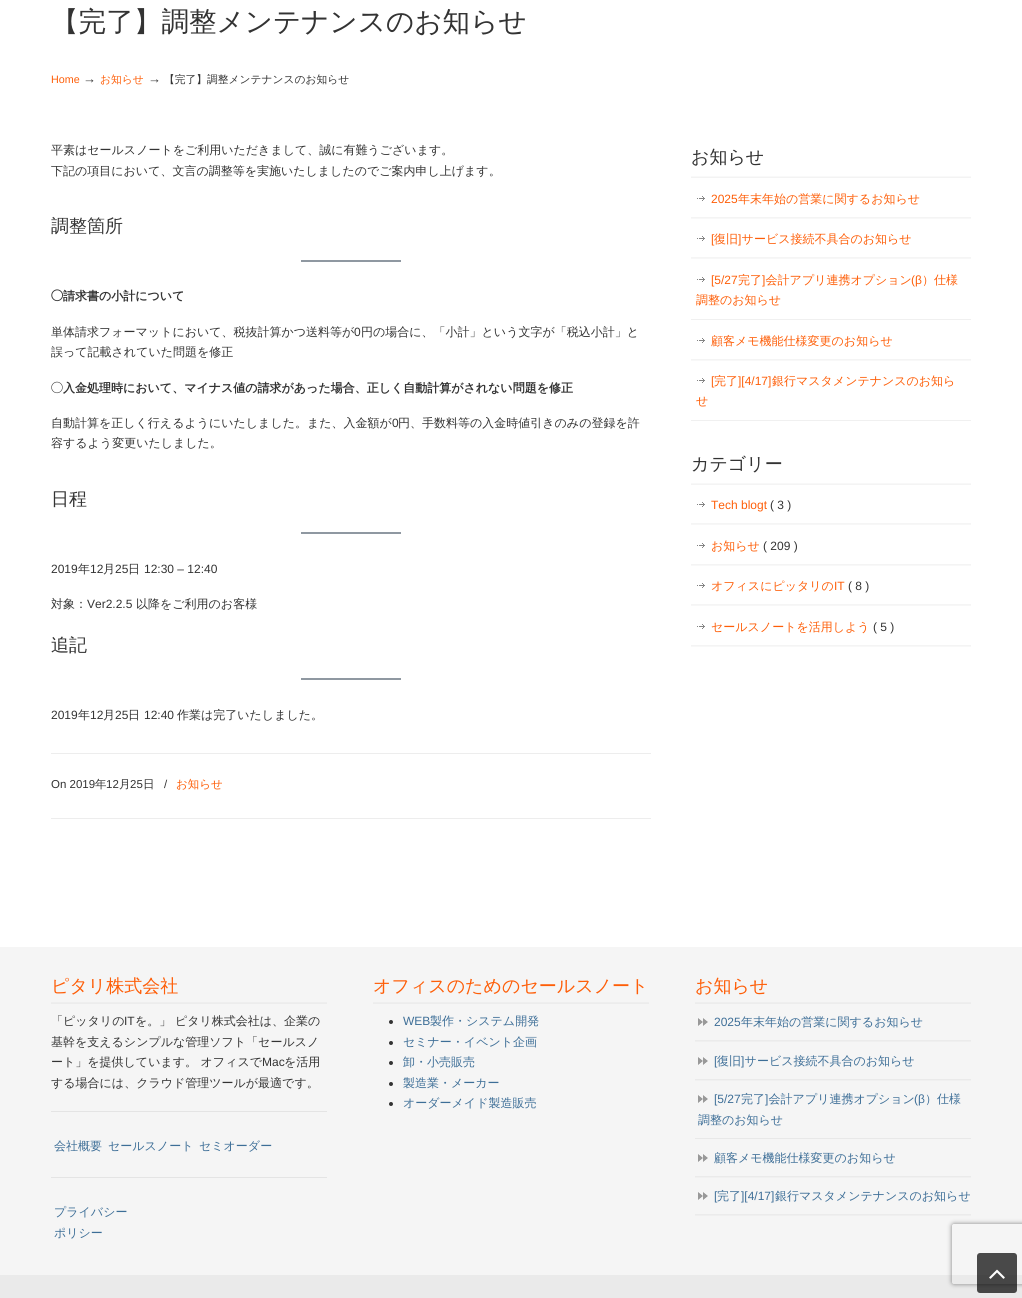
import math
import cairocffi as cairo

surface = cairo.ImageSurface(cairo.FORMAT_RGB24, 1022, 1298)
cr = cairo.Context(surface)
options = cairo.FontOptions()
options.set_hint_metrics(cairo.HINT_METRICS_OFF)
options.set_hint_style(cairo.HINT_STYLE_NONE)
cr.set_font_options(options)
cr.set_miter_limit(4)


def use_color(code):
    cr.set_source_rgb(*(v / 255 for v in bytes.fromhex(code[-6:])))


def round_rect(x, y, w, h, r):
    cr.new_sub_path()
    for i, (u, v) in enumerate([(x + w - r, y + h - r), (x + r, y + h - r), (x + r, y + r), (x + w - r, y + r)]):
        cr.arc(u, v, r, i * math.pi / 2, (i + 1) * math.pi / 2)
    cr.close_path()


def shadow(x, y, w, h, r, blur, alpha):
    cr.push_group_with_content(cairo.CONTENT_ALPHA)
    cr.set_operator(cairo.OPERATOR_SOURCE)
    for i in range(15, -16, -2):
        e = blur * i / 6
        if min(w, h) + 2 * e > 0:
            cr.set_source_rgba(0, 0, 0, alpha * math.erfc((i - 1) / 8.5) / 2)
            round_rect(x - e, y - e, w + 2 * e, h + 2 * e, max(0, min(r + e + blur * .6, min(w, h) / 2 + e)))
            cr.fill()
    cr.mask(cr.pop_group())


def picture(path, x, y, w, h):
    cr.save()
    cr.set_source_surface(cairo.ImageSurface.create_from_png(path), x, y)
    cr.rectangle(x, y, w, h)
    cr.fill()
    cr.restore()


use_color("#ffffff")
cr.paint()
cr.select_font_face("WenQuanYi Zen Hei Medium")
cr.set_font_size(27.6)
use_color("#333333")
cr.move_to(51, 31)
cr.show_text("【完了】調整メンテナンスのお知らせ")
cr.select_font_face("Liberation Sans")
cr.set_font_size(10.75)
use_color("#fe5e08")
cr.move_to(51, 83)
cr.show_text("Home")
cr.set_font_size(13)
use_color("#333333")
cr.move_to(83, 83)
cr.show_text("→")
cr.select_font_face("WenQuanYi Zen Hei Medium")
cr.set_font_size(10.75)
use_color("#fe5e08")
cr.move_to(100, 83)
cr.show_text("お知らせ")
cr.select_font_face("Liberation Sans")
cr.set_font_size(13)
use_color("#333333")
cr.move_to(148, 83)
cr.show_text("→")
cr.select_font_face("WenQuanYi Zen Hei Medium")
cr.set_font_size(10.75)
cr.move_to(164, 83)
cr.show_text("【完了】調整メンテナンスのお知らせ")
cr.set_font_size(12)
cr.move_to(51, 154)
cr.show_text("平素はセールスノートをご利用いただきまして、誠に有難うございます。")
cr.move_to(51, 175)
cr.show_text("下記の項目において、文言の調整等を実施いたしましたのでご案内申し上げます。")
cr.set_font_size(18)
cr.move_to(51, 232)
cr.show_text("調整箇所")
use_color("#8f98a1")
cr.rectangle(301, 260, 100, 2)
cr.fill()
cr.select_font_face("IPAPGothic", cairo.FONT_SLANT_NORMAL, cairo.FONT_WEIGHT_BOLD)
cr.set_font_size(12)
use_color("#333333")
cr.move_to(51, 300)
cr.show_text("◯")
cr.select_font_face("WenQuanYi Zen Hei", cairo.FONT_SLANT_NORMAL, cairo.FONT_WEIGHT_BOLD)
cr.move_to(63, 300)
cr.show_text("請求書の小計について")
cr.select_font_face("WenQuanYi Zen Hei Medium")
cr.move_to(51, 336)
cr.show_text("単体請求フォーマットにおいて、税抜計算かつ送料等が")
cr.select_font_face("Liberation Sans")
cr.move_to(354, 336)
cr.show_text("0")
cr.select_font_face("WenQuanYi Zen Hei Medium")
cr.move_to(361, 336)
cr.show_text("円の場合に、「小計」という文字が「税込小計」と")
cr.move_to(51, 356)
cr.show_text("誤って記載されていた問題を修正")
cr.select_font_face("IPAPGothic")
cr.move_to(51, 392)
cr.show_text("◯")
cr.select_font_face("WenQuanYi Zen Hei", cairo.FONT_SLANT_NORMAL, cairo.FONT_WEIGHT_BOLD)
cr.move_to(63, 392)
cr.show_text("入金処理時において、マイナス値の請求があった場合、正しく自動計算がされない問題を修正")
cr.select_font_face("WenQuanYi Zen Hei Medium")
cr.move_to(51, 427)
cr.show_text("自動計算を正しく行えるようにいたしました。また、入金額が")
cr.select_font_face("Liberation Sans")
cr.move_to(392, 427)
cr.show_text("0")
cr.select_font_face("WenQuanYi Zen Hei Medium")
cr.move_to(398, 427)
cr.show_text("円、手数料等の入金時値引きのみの登録を許")
cr.move_to(51, 447)
cr.show_text("容するよう変更いたしました。")
cr.set_font_size(18)
cr.move_to(51, 505)
cr.show_text("日程")
use_color("#8f98a1")
cr.rectangle(301, 532, 100, 2)
cr.fill()
cr.select_font_face("Liberation Sans")
cr.set_font_size(12)
use_color("#333333")
cr.move_to(51, 573)
cr.show_text("2019")
cr.select_font_face("WenQuanYi Zen Hei Medium")
cr.move_to(78, 573)
cr.show_text("年")
cr.select_font_face("Liberation Sans")
cr.move_to(90, 573)
cr.show_text("12")
cr.select_font_face("WenQuanYi Zen Hei Medium")
cr.move_to(103, 573)
cr.show_text("月")
cr.select_font_face("Liberation Sans")
cr.move_to(115, 573)
cr.show_text("25")
cr.select_font_face("WenQuanYi Zen Hei Medium")
cr.move_to(128, 573)
cr.show_text("日")
cr.select_font_face("Liberation Sans")
cr.move_to(144, 573)
cr.show_text("12:30 – 12:40")
cr.select_font_face("WenQuanYi Zen Hei Medium")
cr.move_to(51, 608)
cr.show_text("対象：")
cr.select_font_face("Liberation Sans")
cr.move_to(87, 608)
cr.show_text("Ver2.2.5")
cr.select_font_face("WenQuanYi Zen Hei Medium")
cr.move_to(136, 608)
cr.show_text("以降をご利用のお客様")
cr.set_font_size(18)
cr.move_to(51, 651)
cr.show_text("追記")
use_color("#8f98a1")
cr.rectangle(301, 678, 100, 2)
cr.fill()
cr.select_font_face("Liberation Sans")
cr.set_font_size(12)
use_color("#333333")
cr.move_to(51, 719)
cr.show_text("2019")
cr.select_font_face("WenQuanYi Zen Hei Medium")
cr.move_to(78, 719)
cr.show_text("年")
cr.select_font_face("Liberation Sans")
cr.move_to(90, 719)
cr.show_text("12")
cr.select_font_face("WenQuanYi Zen Hei Medium")
cr.move_to(103, 719)
cr.show_text("月")
cr.select_font_face("Liberation Sans")
cr.move_to(115, 719)
cr.show_text("25")
cr.select_font_face("WenQuanYi Zen Hei Medium")
cr.move_to(128, 719)
cr.show_text("日")
cr.select_font_face("Liberation Sans")
cr.move_to(144, 719)
cr.show_text("12:40")
cr.select_font_face("WenQuanYi Zen Hei Medium")
cr.move_to(177, 719)
cr.show_text("作業は完了いたしました。")
use_color("#ededed")
cr.rectangle(51, 753, 600, 1)
cr.fill()
cr.select_font_face("Liberation Sans")
cr.set_font_size(11.5)
use_color("#333333")
cr.move_to(51, 788)
cr.show_text("On 2019")
cr.select_font_face("WenQuanYi Zen Hei Medium")
cr.move_to(95, 788)
cr.show_text("年")
cr.select_font_face("Liberation Sans")
cr.move_to(106, 788)
cr.show_text("12")
cr.select_font_face("WenQuanYi Zen Hei Medium")
cr.move_to(119, 788)
cr.show_text("月")
cr.select_font_face("Liberation Sans")
cr.move_to(130, 788)
cr.show_text("25")
cr.select_font_face("WenQuanYi Zen Hei Medium")
cr.move_to(143, 788)
cr.show_text("日")
cr.select_font_face("Liberation Sans")
cr.move_to(164, 788)
cr.show_text("/")
cr.select_font_face("WenQuanYi Zen Hei Medium")
use_color("#fe5e08")
cr.move_to(176, 788)
cr.show_text("お知らせ")
use_color("#ededed")
cr.rectangle(51, 818, 600, 1)
cr.fill()
picture("img1.png", 691, 176, 280, 2)
cr.set_font_size(18)
use_color("#333333")
cr.move_to(691, 163)
cr.show_text("お知らせ")
picture("img2.png", 691, 217, 280, 2)
picture("img3.png", 697, 196, 8, 5)
cr.select_font_face("Liberation Sans")
cr.set_font_size(12)
use_color("#fe5e08")
cr.move_to(711, 203)
cr.show_text("2025")
cr.select_font_face("WenQuanYi Zen Hei Medium")
cr.move_to(738, 203)
cr.show_text("年末年始の営業に関するお知らせ")
picture("img4.png", 691, 257, 280, 2)
cr.select_font_face("Liberation Sans")
cr.move_to(711, 243)
cr.show_text("[")
cr.select_font_face("WenQuanYi Zen Hei Medium")
cr.move_to(714, 243)
cr.show_text("復旧 サービス接続不具合のお知らせ")
picture("img3.png", 697, 236, 8, 5)
cr.select_font_face("Liberation Sans")
cr.move_to(738, 243)
cr.show_text("]")
use_color("#f0f0f0")
cr.rectangle(691, 319, 280, 1)
cr.fill()
use_color("#fe5e08")
cr.move_to(711, 284)
cr.show_text("[5/27")
cr.select_font_face("WenQuanYi Zen Hei Medium")
cr.move_to(738, 284)
cr.show_text("完了 会計アプリ連携オプション")
cr.move_to(922, 284)
cr.show_text("）仕様")
picture("img3.png", 697, 277, 8, 5)
cr.select_font_face("Liberation Sans")
cr.move_to(762, 284)
cr.show_text("]")
cr.move_to(911, 284)
cr.show_text("(β")
cr.select_font_face("WenQuanYi Zen Hei Medium")
cr.move_to(696, 304)
cr.show_text("調整のお知らせ")
picture("img2.png", 691, 359, 280, 2)
picture("img3.png", 697, 338, 8, 5)
cr.move_to(711, 345)
cr.show_text("顧客メモ機能仕様変更のお知らせ")
use_color("#f0f0f0")
cr.rectangle(691, 420, 280, 1)
cr.fill()
picture("img3.png", 697, 378, 8, 5)
cr.select_font_face("Liberation Sans")
use_color("#fe5e08")
cr.move_to(711, 385)
cr.show_text("[")
cr.select_font_face("WenQuanYi Zen Hei Medium")
cr.move_to(714, 385)
cr.show_text("完了")
cr.select_font_face("Liberation Sans")
cr.move_to(738, 385)
cr.show_text("][4/17]")
cr.select_font_face("WenQuanYi Zen Hei Medium")
cr.move_to(772, 385)
cr.show_text("銀行マスタメンテナンスのお知ら")
cr.move_to(696, 405)
cr.show_text("せ")
picture("img5.png", 691, 483, 280, 2)
cr.set_font_size(18)
use_color("#333333")
cr.move_to(691, 470)
cr.show_text("カテゴリー")
picture("img4.png", 691, 523, 280, 2)
picture("img3.png", 697, 502, 8, 5)
cr.select_font_face("Liberation Sans")
cr.set_font_size(12)
use_color("#fe5e08")
cr.move_to(711, 509)
cr.show_text("Tech blogt")
use_color("#333333")
cr.move_to(770, 509)
cr.show_text("( 3 )")
picture("img2.png", 691, 564, 280, 2)
picture("img3.png", 697, 543, 8, 5)
cr.select_font_face("WenQuanYi Zen Hei Medium")
use_color("#fe5e08")
cr.move_to(711, 550)
cr.show_text("お知らせ")
cr.select_font_face("Liberation Sans")
use_color("#333333")
cr.move_to(763, 550)
cr.show_text("( 209 )")
picture("img4.png", 691, 604, 280, 2)
picture("img3.png", 697, 583, 8, 5)
cr.select_font_face("WenQuanYi Zen Hei Medium")
use_color("#fe5e08")
cr.move_to(711, 590)
cr.show_text("オフィスにピッタリの")
cr.select_font_face("Liberation Sans")
cr.move_to(834, 590)
cr.show_text("IT")
use_color("#333333")
cr.move_to(848, 590)
cr.show_text("( 8 )")
picture("img2.png", 691, 645, 280, 2)
picture("img3.png", 697, 624, 8, 5)
cr.select_font_face("WenQuanYi Zen Hei Medium")
use_color("#fe5e08")
cr.move_to(711, 631)
cr.show_text("セールスノートを活用しよう")
cr.select_font_face("Liberation Sans")
use_color("#333333")
cr.move_to(873, 631)
cr.show_text("( 5 )")
use_color("#f5f5f5")
cr.rectangle(0, 947, 1022, 328)
cr.fill()
picture("img6.png", 51, 1002, 276, 2)
cr.select_font_face("WenQuanYi Zen Hei Medium")
cr.set_font_size(18)
use_color("#fe5e08")
cr.move_to(51, 992)
cr.show_text("ピタリ株式会社")
cr.set_font_size(12)
use_color("#333333")
cr.move_to(51, 1025)
cr.show_text("「ピッタリの")
cr.select_font_face("Liberation Sans")
cr.move_to(124, 1025)
cr.show_text("IT")
cr.select_font_face("WenQuanYi Zen Hei Medium")
cr.move_to(135, 1025)
cr.show_text("を。」 ピタリ株式会社は、企業の")
cr.move_to(51, 1046)
cr.show_text("基幹を支えるシンプルな管理ソフト「セールスノ")
cr.move_to(51, 1066)
cr.show_text("ート」を提供しています。 オフィスで")
cr.select_font_face("Liberation Sans")
cr.move_to(262, 1066)
cr.show_text("Mac")
cr.select_font_face("WenQuanYi Zen Hei Medium")
cr.move_to(284, 1066)
cr.show_text("を活用")
cr.move_to(51, 1087)
cr.show_text("する場合には、クラウド管理ツールが最適です。")
use_color("#e4e4e4")
cr.rectangle(51, 1111, 276, 1)
cr.fill()
use_color("#3d6e97")
cr.move_to(54, 1150)
cr.show_text("会社概要")
cr.move_to(108, 1150)
cr.show_text("セールスノート")
cr.move_to(199, 1150)
cr.show_text("セミオーダー")
use_color("#e4e4e4")
cr.rectangle(51, 1177, 276, 1)
cr.fill()
use_color("#3d6e97")
cr.move_to(54, 1216)
cr.show_text("プライバシー")
cr.move_to(54, 1237)
cr.show_text("ポリシー")
picture("img6.png", 373, 1002, 276, 2)
cr.set_font_size(18)
use_color("#fe5e08")
cr.move_to(373, 992)
cr.show_text("オフィスのためのセールスノート")
use_color("#333333")
cr.new_path()
cr.arc(391, 1022, 2, 0, 2 * math.pi)
cr.fill()
cr.select_font_face("Liberation Sans")
cr.set_font_size(12)
use_color("#3d6e97")
cr.move_to(403, 1025)
cr.show_text("WEB")
cr.select_font_face("WenQuanYi Zen Hei Medium")
cr.move_to(430, 1025)
cr.show_text("製作・システム開発")
use_color("#333333")
cr.new_path()
cr.arc(391, 1043, 2, 0, 2 * math.pi)
cr.fill()
use_color("#3d6e97")
cr.move_to(403, 1046)
cr.show_text("セミナー・イベント企画")
use_color("#333333")
cr.new_path()
cr.arc(391, 1063, 2, 0, 2 * math.pi)
cr.fill()
use_color("#3d6e97")
cr.move_to(403, 1066)
cr.show_text("卸・小売販売")
use_color("#333333")
cr.new_path()
cr.arc(391, 1084, 2, 0, 2 * math.pi)
cr.fill()
use_color("#3d6e97")
cr.move_to(403, 1087)
cr.show_text("製造業・メーカー")
use_color("#333333")
cr.new_path()
cr.arc(391, 1104, 2, 0, 2 * math.pi)
cr.fill()
use_color("#3d6e97")
cr.move_to(403, 1107)
cr.show_text("オーダーメイド製造販売")
picture("img6.png", 695, 1002, 276, 2)
cr.set_font_size(18)
use_color("#fe5e08")
cr.move_to(695, 992)
cr.show_text("お知らせ")
picture("img7.png", 695, 1040, 276, 2)
picture("img8.png", 698, 1018, 10, 8)
cr.select_font_face("Liberation Sans")
cr.set_font_size(12)
use_color("#3d6e97")
cr.move_to(714, 1026)
cr.show_text("2025")
cr.select_font_face("WenQuanYi Zen Hei Medium")
cr.move_to(741, 1026)
cr.show_text("年末年始の営業に関するお知らせ")
picture("img9.png", 695, 1079, 276, 2)
cr.select_font_face("Liberation Sans")
cr.move_to(714, 1065)
cr.show_text("[")
cr.select_font_face("WenQuanYi Zen Hei Medium")
cr.move_to(717, 1065)
cr.show_text("復旧 サービス接続不具合のお知らせ")
picture("img8.png", 698, 1057, 10, 8)
cr.select_font_face("Liberation Sans")
cr.move_to(741, 1065)
cr.show_text("]")
use_color("#e8e8e8")
cr.rectangle(695, 1138, 276, 1)
cr.fill()
use_color("#3d6e97")
cr.move_to(714, 1103)
cr.show_text("[5/27")
cr.select_font_face("WenQuanYi Zen Hei Medium")
cr.move_to(741, 1103)
cr.show_text("完了 会計アプリ連携オプション")
cr.move_to(925, 1103)
cr.show_text("）仕様")
picture("img8.png", 698, 1095, 10, 8)
cr.select_font_face("Liberation Sans")
cr.move_to(765, 1103)
cr.show_text("]")
cr.move_to(914, 1103)
cr.show_text("(β")
cr.select_font_face("WenQuanYi Zen Hei Medium")
cr.move_to(698, 1124)
cr.show_text("調整のお知らせ")
picture("img9.png", 695, 1176, 276, 2)
picture("img8.png", 698, 1154, 10, 8)
cr.move_to(714, 1162)
cr.show_text("顧客メモ機能仕様変更のお知らせ")
picture("img7.png", 695, 1214, 276, 2)
picture("img8.png", 698, 1192, 10, 8)
cr.select_font_face("Liberation Sans")
cr.move_to(714, 1200)
cr.show_text("[")
cr.select_font_face("WenQuanYi Zen Hei Medium")
cr.move_to(717, 1200)
cr.show_text("完了")
cr.select_font_face("Liberation Sans")
cr.move_to(741, 1200)
cr.show_text("][4/17]")
cr.select_font_face("WenQuanYi Zen Hei Medium")
cr.move_to(775, 1200)
cr.show_text("銀行マスタメンテナンスのお知らせ")
use_color("#eaeaea")
cr.rectangle(0, 1275, 1022, 23)
cr.fill()
cr.save()
cr.set_fill_rule(cairo.FILL_RULE_EVEN_ODD)
cr.new_path()
cr.move_to(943, 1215)
cr.line_to(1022, 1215)
cr.line_to(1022, 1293)
cr.line_to(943, 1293)
cr.close_path()
cr.move_to(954, 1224)
cr.line_to(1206, 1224)
cr.curve_to(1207, 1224, 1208, 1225, 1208, 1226)
cr.line_to(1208, 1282)
cr.curve_to(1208, 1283, 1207, 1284, 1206, 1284)
cr.line_to(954, 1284)
cr.curve_to(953, 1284, 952, 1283, 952, 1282)
cr.line_to(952, 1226)
cr.curve_to(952, 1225, 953, 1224, 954, 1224)
cr.close_path()
cr.clip()
use_color("#808080")
shadow(952, 1224, 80, 60, 2, 2.5, 1)
cr.restore()
cr.set_source_rgba(0, 0, 0, 0.7)
round_rect(977, 1253, 40, 40, 3)
cr.fill()
picture("img10.png", 989, 1269, 16, 10)
surface.write_to_png("result.png")
